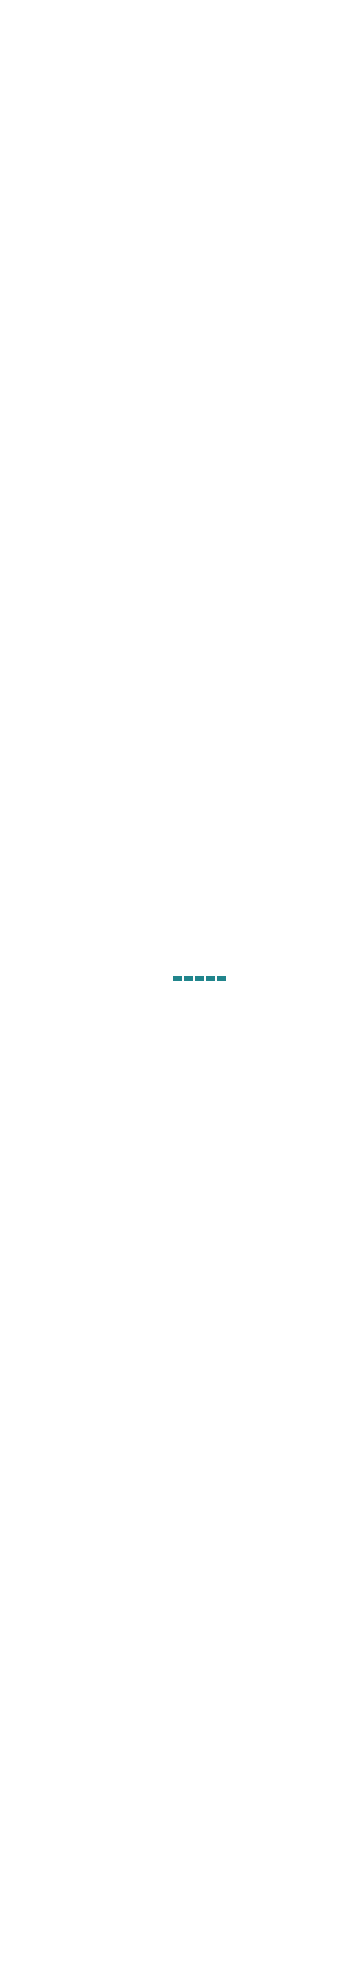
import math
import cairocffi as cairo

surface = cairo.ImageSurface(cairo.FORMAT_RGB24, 345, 1961)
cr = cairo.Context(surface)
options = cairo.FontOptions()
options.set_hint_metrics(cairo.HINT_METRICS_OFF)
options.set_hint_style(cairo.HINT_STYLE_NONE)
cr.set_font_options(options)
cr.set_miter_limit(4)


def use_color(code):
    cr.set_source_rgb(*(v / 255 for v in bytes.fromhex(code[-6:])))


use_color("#ffffff")
cr.paint()
use_color("#21858c")
cr.rectangle(173, 976, 9, 5)
cr.fill()
cr.rectangle(184, 976, 9, 5)
cr.fill()
cr.rectangle(195, 976, 9, 5)
cr.fill()
cr.rectangle(206, 976, 9, 5)
cr.fill()
cr.rectangle(217, 976, 9, 5)
cr.fill()
surface.write_to_png("result.png")
